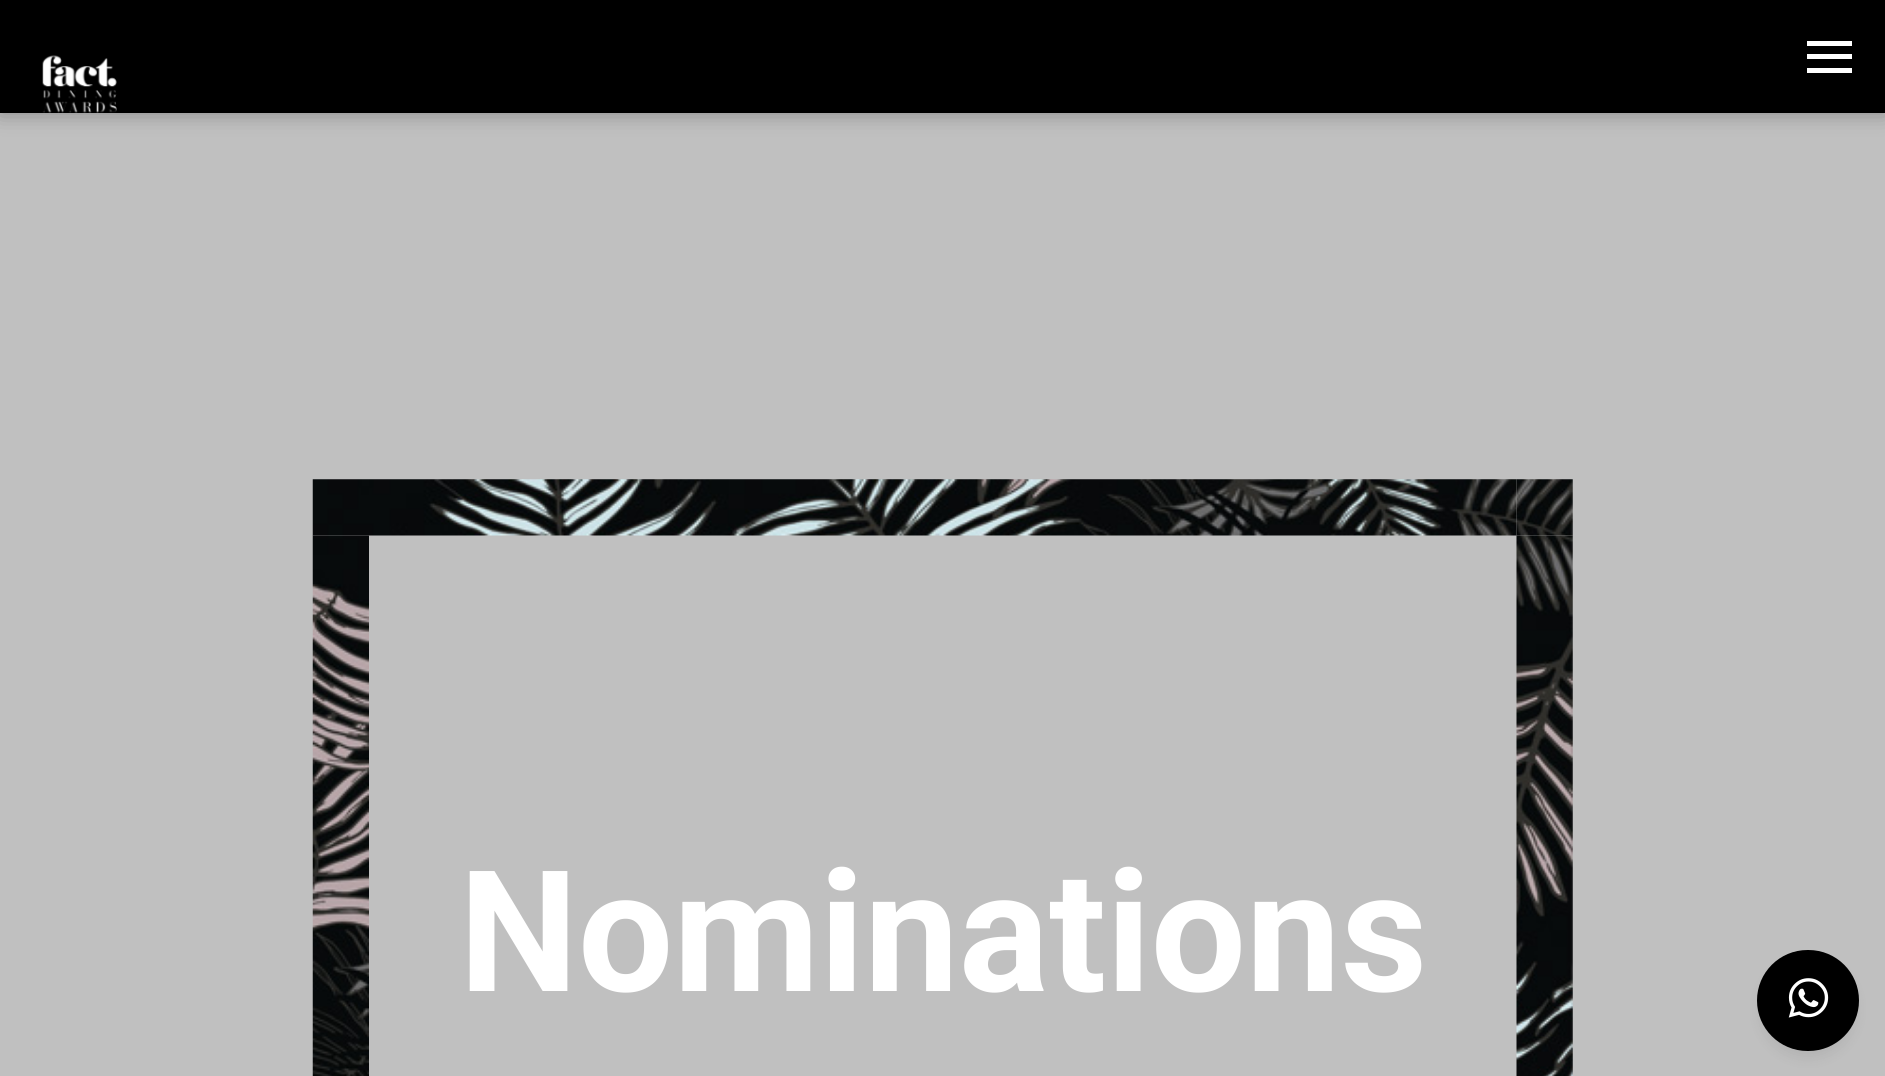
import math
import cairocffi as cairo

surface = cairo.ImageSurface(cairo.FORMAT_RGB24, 1885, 1076)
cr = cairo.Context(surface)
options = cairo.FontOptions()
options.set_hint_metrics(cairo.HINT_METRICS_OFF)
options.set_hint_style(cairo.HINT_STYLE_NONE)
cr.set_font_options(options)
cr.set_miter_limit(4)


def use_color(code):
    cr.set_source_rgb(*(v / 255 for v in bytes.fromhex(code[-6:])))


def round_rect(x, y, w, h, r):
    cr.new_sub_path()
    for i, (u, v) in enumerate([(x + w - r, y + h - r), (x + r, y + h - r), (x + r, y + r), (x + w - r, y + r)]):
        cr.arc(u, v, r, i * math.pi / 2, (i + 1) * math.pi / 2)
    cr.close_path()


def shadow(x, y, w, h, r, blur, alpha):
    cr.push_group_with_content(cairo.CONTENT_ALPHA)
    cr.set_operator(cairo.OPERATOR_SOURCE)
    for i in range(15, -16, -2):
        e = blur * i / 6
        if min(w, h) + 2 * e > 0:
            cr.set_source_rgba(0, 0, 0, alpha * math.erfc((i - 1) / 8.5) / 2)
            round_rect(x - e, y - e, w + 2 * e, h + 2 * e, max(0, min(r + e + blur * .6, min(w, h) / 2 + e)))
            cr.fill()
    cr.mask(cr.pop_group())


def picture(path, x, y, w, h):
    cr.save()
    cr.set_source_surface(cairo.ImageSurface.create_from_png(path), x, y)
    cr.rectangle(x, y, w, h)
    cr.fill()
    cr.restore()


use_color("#c0c0c0")
cr.paint()
use_color("#000000")
shadow(0, 0, 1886, 113, 0, 11, 0.3)
use_color("#000000")
cr.rectangle(0, 0, 1885, 113)
cr.fill()
picture("img1.png", 42, 55, 75, 58)
use_color("#ffffff")
cr.rectangle(1807, 41, 45, 5)
cr.fill()
cr.rectangle(1807, 54, 45, 5)
cr.fill()
cr.rectangle(1807, 68, 45, 5)
cr.fill()
picture("img2.png", 312, 479, 1261, 597)
cr.select_font_face("Roboto", cairo.FONT_SLANT_NORMAL, cairo.FONT_WEIGHT_BOLD)
cr.set_font_size(168.75)
cr.move_to(459, 991)
cr.show_text("Nominations")
use_color("#000000")
shadow(1760, 961, 96, 97, 48, 7, 0.07)
use_color("#000000")
round_rect(1757, 950, 102, 101, 50.5)
cr.fill()
picture("img3.png", 1788, 978, 41, 40)
surface.write_to_png("result.png")
